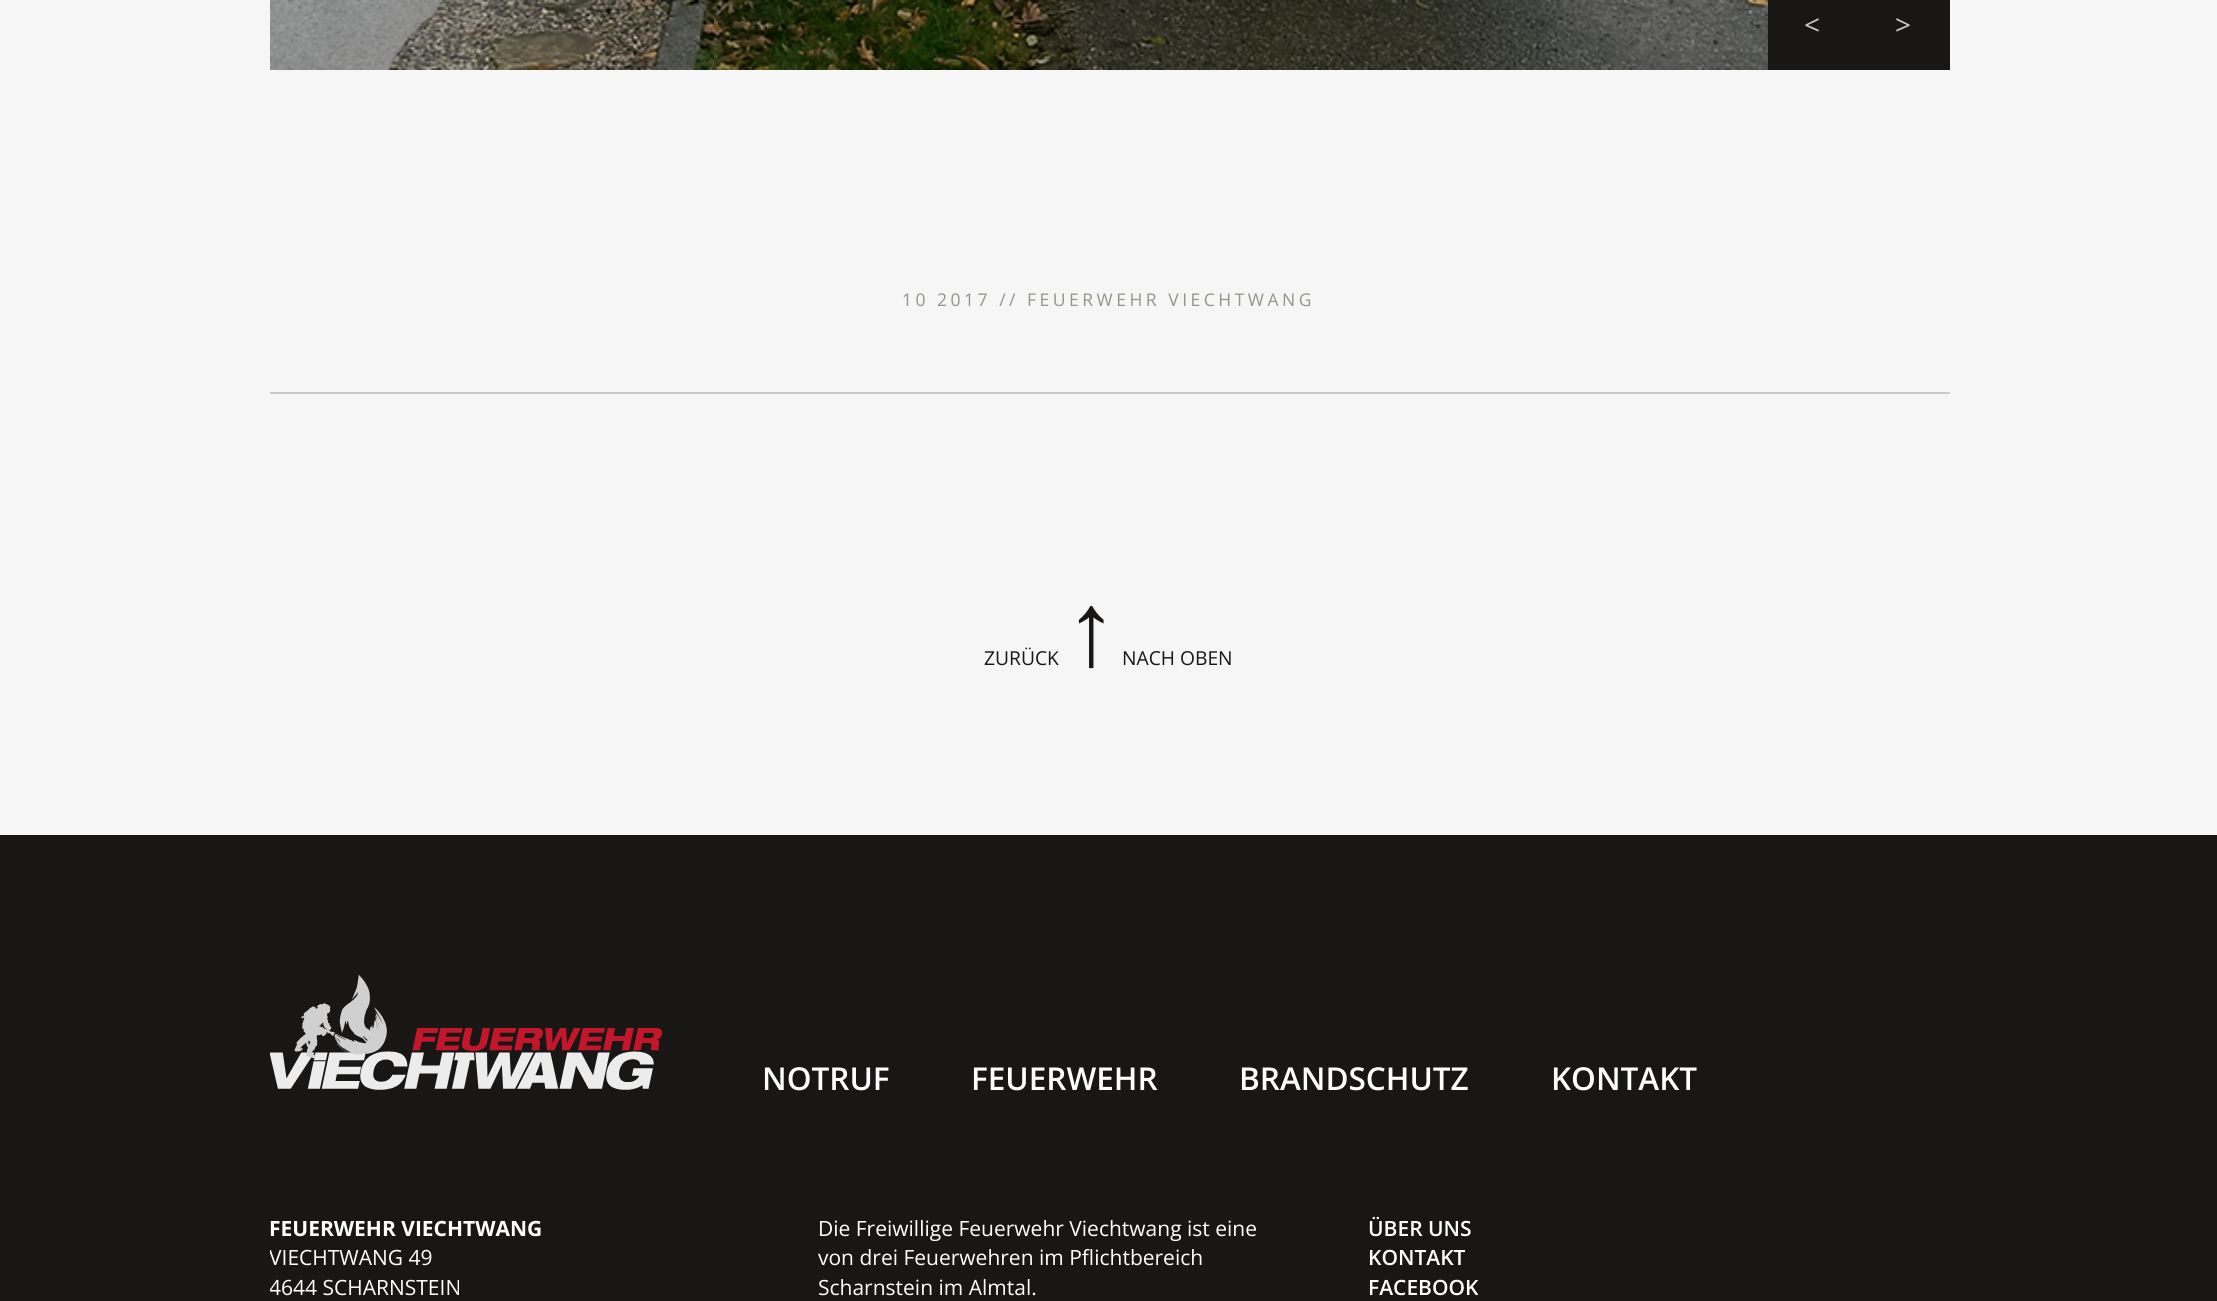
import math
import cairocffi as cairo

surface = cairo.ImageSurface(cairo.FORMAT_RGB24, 2217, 1301)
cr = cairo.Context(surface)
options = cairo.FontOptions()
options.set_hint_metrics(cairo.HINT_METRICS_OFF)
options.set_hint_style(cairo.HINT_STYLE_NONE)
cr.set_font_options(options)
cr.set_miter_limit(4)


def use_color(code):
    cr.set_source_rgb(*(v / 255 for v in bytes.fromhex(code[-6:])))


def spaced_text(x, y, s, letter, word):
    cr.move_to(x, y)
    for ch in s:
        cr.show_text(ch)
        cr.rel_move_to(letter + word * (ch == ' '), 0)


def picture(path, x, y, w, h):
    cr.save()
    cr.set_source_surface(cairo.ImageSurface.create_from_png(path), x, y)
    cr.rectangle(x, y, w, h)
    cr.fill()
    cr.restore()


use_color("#f6f6f6")
cr.paint()
picture("img1.png", 270, 0, 1498, 70)
use_color("#181716")
cr.rectangle(1768, 0, 182, 70)
cr.fill()
cr.select_font_face("Open Sans")
cr.set_font_size(28)
use_color("#cac9c5")
cr.move_to(1804, 35)
cr.show_text("<")
cr.move_to(1895, 35)
cr.show_text(">")
cr.rectangle(270, 392, 1680, 2)
cr.fill()
cr.set_font_size(17.5)
use_color("#95938a")
spaced_text(902, 306, "10 2017 // FEUERWEHR VIECHTWANG", 3.5, 0)
cr.set_font_size(19.25)
use_color("#181716")
cr.move_to(984, 665)
cr.show_text("ZURÜCK")
cr.select_font_face("Liberation Sans")
cr.set_font_size(105)
cr.move_to(1065, 665)
cr.show_text("↑")
cr.select_font_face("Open Sans")
cr.set_font_size(19.25)
cr.move_to(1122, 665)
cr.show_text("NACH OBEN")
cr.rectangle(0, 835, 2217, 466)
cr.fill()
picture("img2.png", 270, 975, 393, 115)
cr.select_font_face("Open Sans SemiBold")
cr.set_font_size(31.5)
use_color("#ffffff")
cr.move_to(762, 1090)
cr.show_text("NOTRUF")
cr.move_to(971, 1090)
cr.show_text("FEUERWEHR")
cr.move_to(1239, 1090)
cr.show_text("BRANDSCHUTZ")
cr.move_to(1551, 1090)
cr.show_text("KONTAKT")
cr.select_font_face("Open Sans", cairo.FONT_SLANT_NORMAL, cairo.FONT_WEIGHT_BOLD)
cr.set_font_size(21)
cr.move_to(269, 1236)
cr.show_text("FEUERWEHR VIECHTWANG")
cr.save()
cr.rectangle(270, 1213, 542, 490)
cr.clip()
cr.select_font_face("Open Sans")
cr.move_to(269, 1265)
cr.show_text("VIECHTWANG 49")
cr.move_to(269, 1295)
cr.show_text("4644 SCHARNSTEIN")
cr.restore()
cr.select_font_face("Open Sans")
cr.move_to(818, 1236)
cr.show_text("Die Freiwillige Feuerwehr Viechtwang ist eine")
cr.move_to(818, 1265)
cr.show_text("von drei Feuerwehren im Pflichtbereich")
cr.move_to(818, 1295)
cr.show_text("Scharnstein im Almtal.")
cr.select_font_face("Open Sans SemiBold")
cr.move_to(1368, 1236)
cr.show_text("ÜBER UNS")
cr.move_to(1368, 1265)
cr.show_text("KONTAKT")
cr.move_to(1368, 1295)
cr.show_text("FACEBOOK")
surface.write_to_png("result.png")
